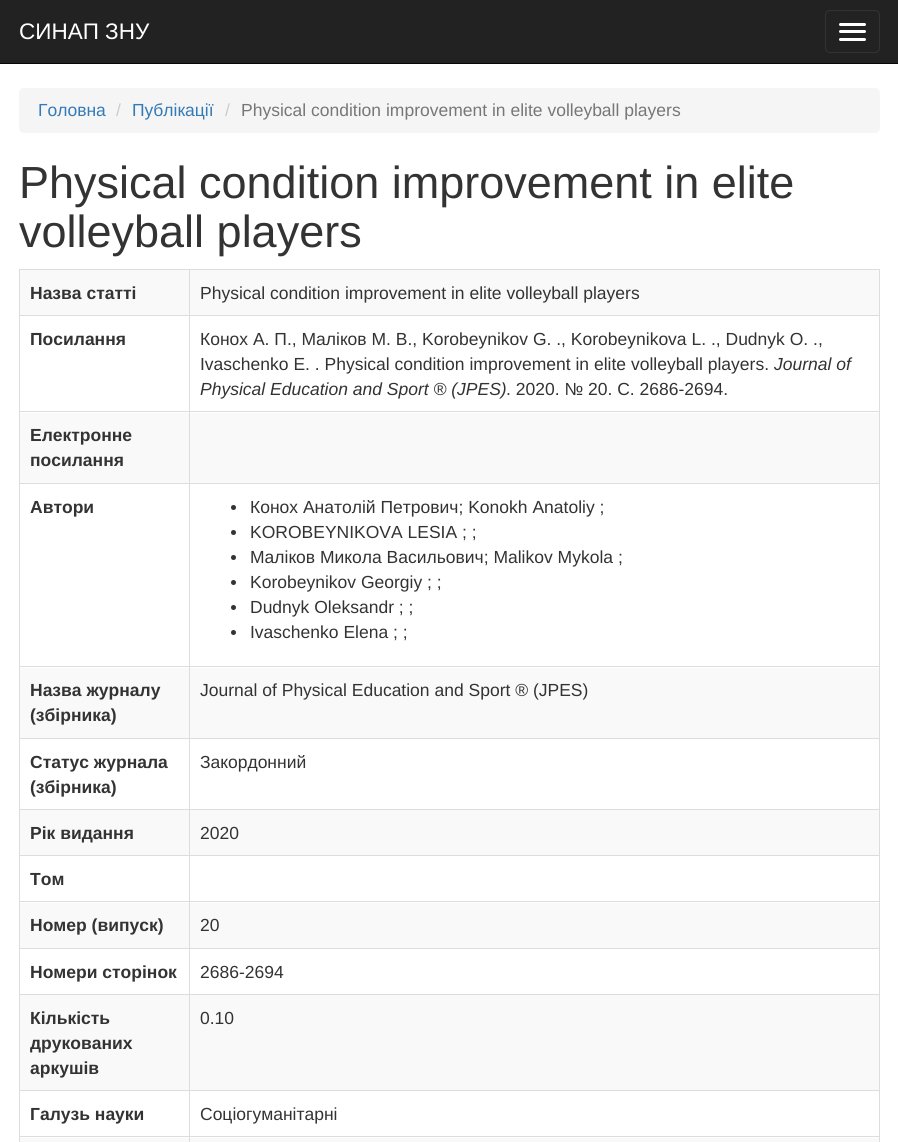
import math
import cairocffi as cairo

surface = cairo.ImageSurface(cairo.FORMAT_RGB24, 898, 1142)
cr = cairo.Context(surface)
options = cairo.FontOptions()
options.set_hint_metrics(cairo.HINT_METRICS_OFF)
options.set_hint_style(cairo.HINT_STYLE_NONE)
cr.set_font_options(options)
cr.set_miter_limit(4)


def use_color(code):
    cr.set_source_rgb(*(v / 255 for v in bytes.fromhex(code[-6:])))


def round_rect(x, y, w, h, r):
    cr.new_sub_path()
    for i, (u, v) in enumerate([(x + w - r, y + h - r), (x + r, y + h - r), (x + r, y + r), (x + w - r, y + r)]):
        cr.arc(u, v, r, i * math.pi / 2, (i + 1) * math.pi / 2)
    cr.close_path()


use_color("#ffffff")
cr.paint()
use_color("#222222")
cr.rectangle(0, 0, 898, 63)
cr.fill()
use_color("#080808")
cr.rectangle(0, 63, 898, 1)
cr.fill()
cr.select_font_face("Liberation Sans")
cr.set_font_size(22.5)
use_color("#ffffff")
cr.move_to(19, 39)
cr.show_text("СИНАП ЗНУ")
round_rect(825.5, 10.5, 54, 42, 4.5)
use_color("#333333")
cr.set_line_width(1)
cr.stroke()
use_color("#ffffff")
round_rect(839, 23, 27, 3, 1.5)
cr.fill()
round_rect(839, 30, 27, 3, 1.5)
cr.fill()
round_rect(839, 38, 27, 3, 1.5)
cr.fill()
use_color("#f5f5f5")
round_rect(19, 88, 861, 45, 5)
cr.fill()
cr.set_font_size(17.5)
use_color("#337ab7")
cr.move_to(38, 116)
cr.show_text("Головна")
use_color("#cccccc")
cr.move_to(116, 116)
cr.show_text("/")
use_color("#337ab7")
cr.move_to(132, 116)
cr.show_text("Публікації")
use_color("#cccccc")
cr.move_to(225, 116)
cr.show_text("/")
use_color("#777777")
cr.move_to(241, 116)
cr.show_text("Physical condition improvement in elite volleyball players")
cr.set_font_size(45)
use_color("#333333")
cr.move_to(19, 198)
cr.show_text("Physical condition improvement in elite")
cr.move_to(19, 247)
cr.show_text("volleyball players")
use_color("#dddddd")
cr.rectangle(19, 269, 861, 1)
cr.fill()
use_color("#f9f9f9")
cr.rectangle(20, 1138, 860, 4)
cr.fill()
use_color("#dddddd")
cr.rectangle(879, 269, 1, 873)
cr.fill()
cr.rectangle(19, 269, 1, 873)
cr.fill()
use_color("#f9f9f9")
cr.rectangle(20, 270, 859, 45)
cr.fill()
cr.select_font_face("Liberation Sans", cairo.FONT_SLANT_NORMAL, cairo.FONT_WEIGHT_BOLD)
cr.set_font_size(17.5)
use_color("#333333")
cr.move_to(30, 299)
cr.show_text("Назва статті")
use_color("#dddddd")
cr.rectangle(189, 315, 691, 1)
cr.fill()
cr.rectangle(189, 411, 691, 1)
cr.fill()
use_color("#f9f9f9")
cr.rectangle(20, 413, 859, 70)
cr.fill()
use_color("#dddddd")
cr.rectangle(189, 483, 691, 1)
cr.fill()
cr.rectangle(189, 666, 691, 1)
cr.fill()
use_color("#f9f9f9")
cr.rectangle(20, 668, 859, 70)
cr.fill()
use_color("#dddddd")
cr.rectangle(189, 738, 691, 1)
cr.fill()
cr.rectangle(189, 809, 691, 1)
cr.fill()
use_color("#f9f9f9")
cr.rectangle(20, 810, 859, 45)
cr.fill()
use_color("#dddddd")
cr.rectangle(189, 855, 691, 1)
cr.fill()
cr.rectangle(189, 901, 691, 1)
cr.fill()
use_color("#f9f9f9")
cr.rectangle(20, 903, 859, 45)
cr.fill()
use_color("#dddddd")
cr.rectangle(189, 948, 691, 1)
cr.fill()
cr.rectangle(189, 994, 691, 1)
cr.fill()
use_color("#f9f9f9")
cr.rectangle(20, 995, 859, 95)
cr.fill()
use_color("#dddddd")
cr.rectangle(189, 1090, 691, 1)
cr.fill()
cr.rectangle(189, 1136, 691, 1)
cr.fill()
cr.rectangle(189, 1136, 1, 6)
cr.fill()
cr.rectangle(19, 1136, 171, 1)
cr.fill()
cr.rectangle(189, 1090, 1, 48)
cr.fill()
cr.rectangle(19, 1090, 171, 1)
cr.fill()
cr.rectangle(189, 994, 1, 97)
cr.fill()
cr.rectangle(19, 994, 171, 1)
cr.fill()
cr.rectangle(189, 948, 1, 47)
cr.fill()
cr.rectangle(19, 948, 171, 1)
cr.fill()
cr.rectangle(189, 901, 1, 48)
cr.fill()
cr.rectangle(19, 901, 171, 1)
cr.fill()
cr.rectangle(189, 855, 1, 48)
cr.fill()
cr.rectangle(19, 855, 171, 1)
cr.fill()
cr.rectangle(189, 809, 1, 47)
cr.fill()
cr.rectangle(19, 809, 171, 1)
cr.fill()
cr.rectangle(189, 738, 1, 72)
cr.fill()
cr.rectangle(19, 738, 171, 1)
cr.fill()
cr.rectangle(189, 666, 1, 73)
cr.fill()
cr.rectangle(19, 666, 171, 1)
cr.fill()
cr.rectangle(189, 483, 1, 185)
cr.fill()
cr.rectangle(19, 483, 171, 1)
cr.fill()
cr.rectangle(189, 411, 1, 73)
cr.fill()
cr.rectangle(19, 411, 171, 1)
cr.fill()
cr.rectangle(189, 315, 1, 98)
cr.fill()
cr.rectangle(19, 315, 171, 1)
cr.fill()
cr.rectangle(189, 269, 1, 47)
cr.fill()
cr.select_font_face("Liberation Sans")
use_color("#333333")
cr.move_to(200, 299)
cr.show_text("Physical condition improvement in elite volleyball players")
cr.select_font_face("Liberation Sans", cairo.FONT_SLANT_NORMAL, cairo.FONT_WEIGHT_BOLD)
cr.move_to(30, 345)
cr.show_text("Посилання")
cr.select_font_face("Liberation Sans")
cr.move_to(200, 345)
cr.show_text("Конох А. П., Маліков М. В., Korobeynikov G. ., Korobeynikova L. ., Dudnyk O. .,")
cr.move_to(200, 370)
cr.show_text("Ivaschenko E. . Physical condition improvement in elite volleyball players.")
cr.select_font_face("Liberation Sans", cairo.FONT_SLANT_ITALIC)
cr.move_to(774, 370)
cr.show_text("Journal of")
cr.move_to(200, 395)
cr.show_text("Physical Education and Sport ® (JPES)")
cr.select_font_face("Liberation Sans")
cr.move_to(506, 395)
cr.show_text(". 2020. № 20. C. 2686-2694.")
cr.select_font_face("Liberation Sans", cairo.FONT_SLANT_NORMAL, cairo.FONT_WEIGHT_BOLD)
cr.move_to(30, 441)
cr.show_text("Електронне")
cr.move_to(30, 466)
cr.show_text("посилання")
cr.move_to(30, 513)
cr.show_text("Автори")
cr.new_path()
cr.arc(233.5, 507.5, 2.5, 0, 2 * math.pi)
cr.fill()
cr.select_font_face("Liberation Sans")
cr.move_to(250, 513)
cr.show_text("Конох Анатолій Петрович; Konokh Anatoliy ;")
cr.new_path()
cr.arc(233.5, 532.5, 2.5, 0, 2 * math.pi)
cr.fill()
cr.move_to(250, 538)
cr.show_text("KOROBEYNIKOVA LESIA ; ;")
cr.new_path()
cr.arc(233.5, 557.5, 2.5, 0, 2 * math.pi)
cr.fill()
cr.move_to(250, 563)
cr.show_text("Маліков Микола Васильович; Malikov Mykola ;")
cr.new_path()
cr.arc(233.5, 582.5, 2.5, 0, 2 * math.pi)
cr.fill()
cr.move_to(250, 588)
cr.show_text("Korobeynikov Georgiy ; ;")
cr.new_path()
cr.arc(233.5, 607.5, 2.5, 0, 2 * math.pi)
cr.fill()
cr.move_to(250, 613)
cr.show_text("Dudnyk Oleksandr ; ;")
cr.new_path()
cr.arc(233.5, 632.5, 2.5, 0, 2 * math.pi)
cr.fill()
cr.move_to(250, 638)
cr.show_text("Ivaschenko Elena ; ;")
cr.select_font_face("Liberation Sans", cairo.FONT_SLANT_NORMAL, cairo.FONT_WEIGHT_BOLD)
cr.move_to(30, 696)
cr.show_text("Назва журналу")
cr.move_to(30, 721)
cr.show_text("(збірника)")
cr.select_font_face("Liberation Sans")
cr.move_to(200, 696)
cr.show_text("Journal of Physical Education and Sport ® (JPES)")
cr.select_font_face("Liberation Sans", cairo.FONT_SLANT_NORMAL, cairo.FONT_WEIGHT_BOLD)
cr.move_to(30, 768)
cr.show_text("Статус журнала")
cr.move_to(30, 793)
cr.show_text("(збірника)")
cr.select_font_face("Liberation Sans")
cr.move_to(200, 768)
cr.show_text("Закордонний")
cr.select_font_face("Liberation Sans", cairo.FONT_SLANT_NORMAL, cairo.FONT_WEIGHT_BOLD)
cr.move_to(30, 839)
cr.show_text("Рік видання")
cr.select_font_face("Liberation Sans")
cr.move_to(200, 839)
cr.show_text("2020")
cr.select_font_face("Liberation Sans", cairo.FONT_SLANT_NORMAL, cairo.FONT_WEIGHT_BOLD)
cr.move_to(30, 885)
cr.show_text("Том")
cr.move_to(30, 931)
cr.show_text("Номер (випуск)")
cr.select_font_face("Liberation Sans")
cr.move_to(200, 931)
cr.show_text("20")
cr.select_font_face("Liberation Sans", cairo.FONT_SLANT_NORMAL, cairo.FONT_WEIGHT_BOLD)
cr.move_to(30, 978)
cr.show_text("Номери сторінок")
cr.select_font_face("Liberation Sans")
cr.move_to(200, 978)
cr.show_text("2686-2694")
cr.select_font_face("Liberation Sans", cairo.FONT_SLANT_NORMAL, cairo.FONT_WEIGHT_BOLD)
cr.move_to(30, 1024)
cr.show_text("Кількість")
cr.move_to(30, 1049)
cr.show_text("друкованих")
cr.move_to(30, 1074)
cr.show_text("аркушів")
cr.select_font_face("Liberation Sans")
cr.move_to(200, 1024)
cr.show_text("0.10")
cr.select_font_face("Liberation Sans", cairo.FONT_SLANT_NORMAL, cairo.FONT_WEIGHT_BOLD)
cr.move_to(30, 1120)
cr.show_text("Галузь науки")
cr.select_font_face("Liberation Sans")
cr.move_to(200, 1120)
cr.show_text("Соціогуманітарні")
surface.write_to_png("result.png")
